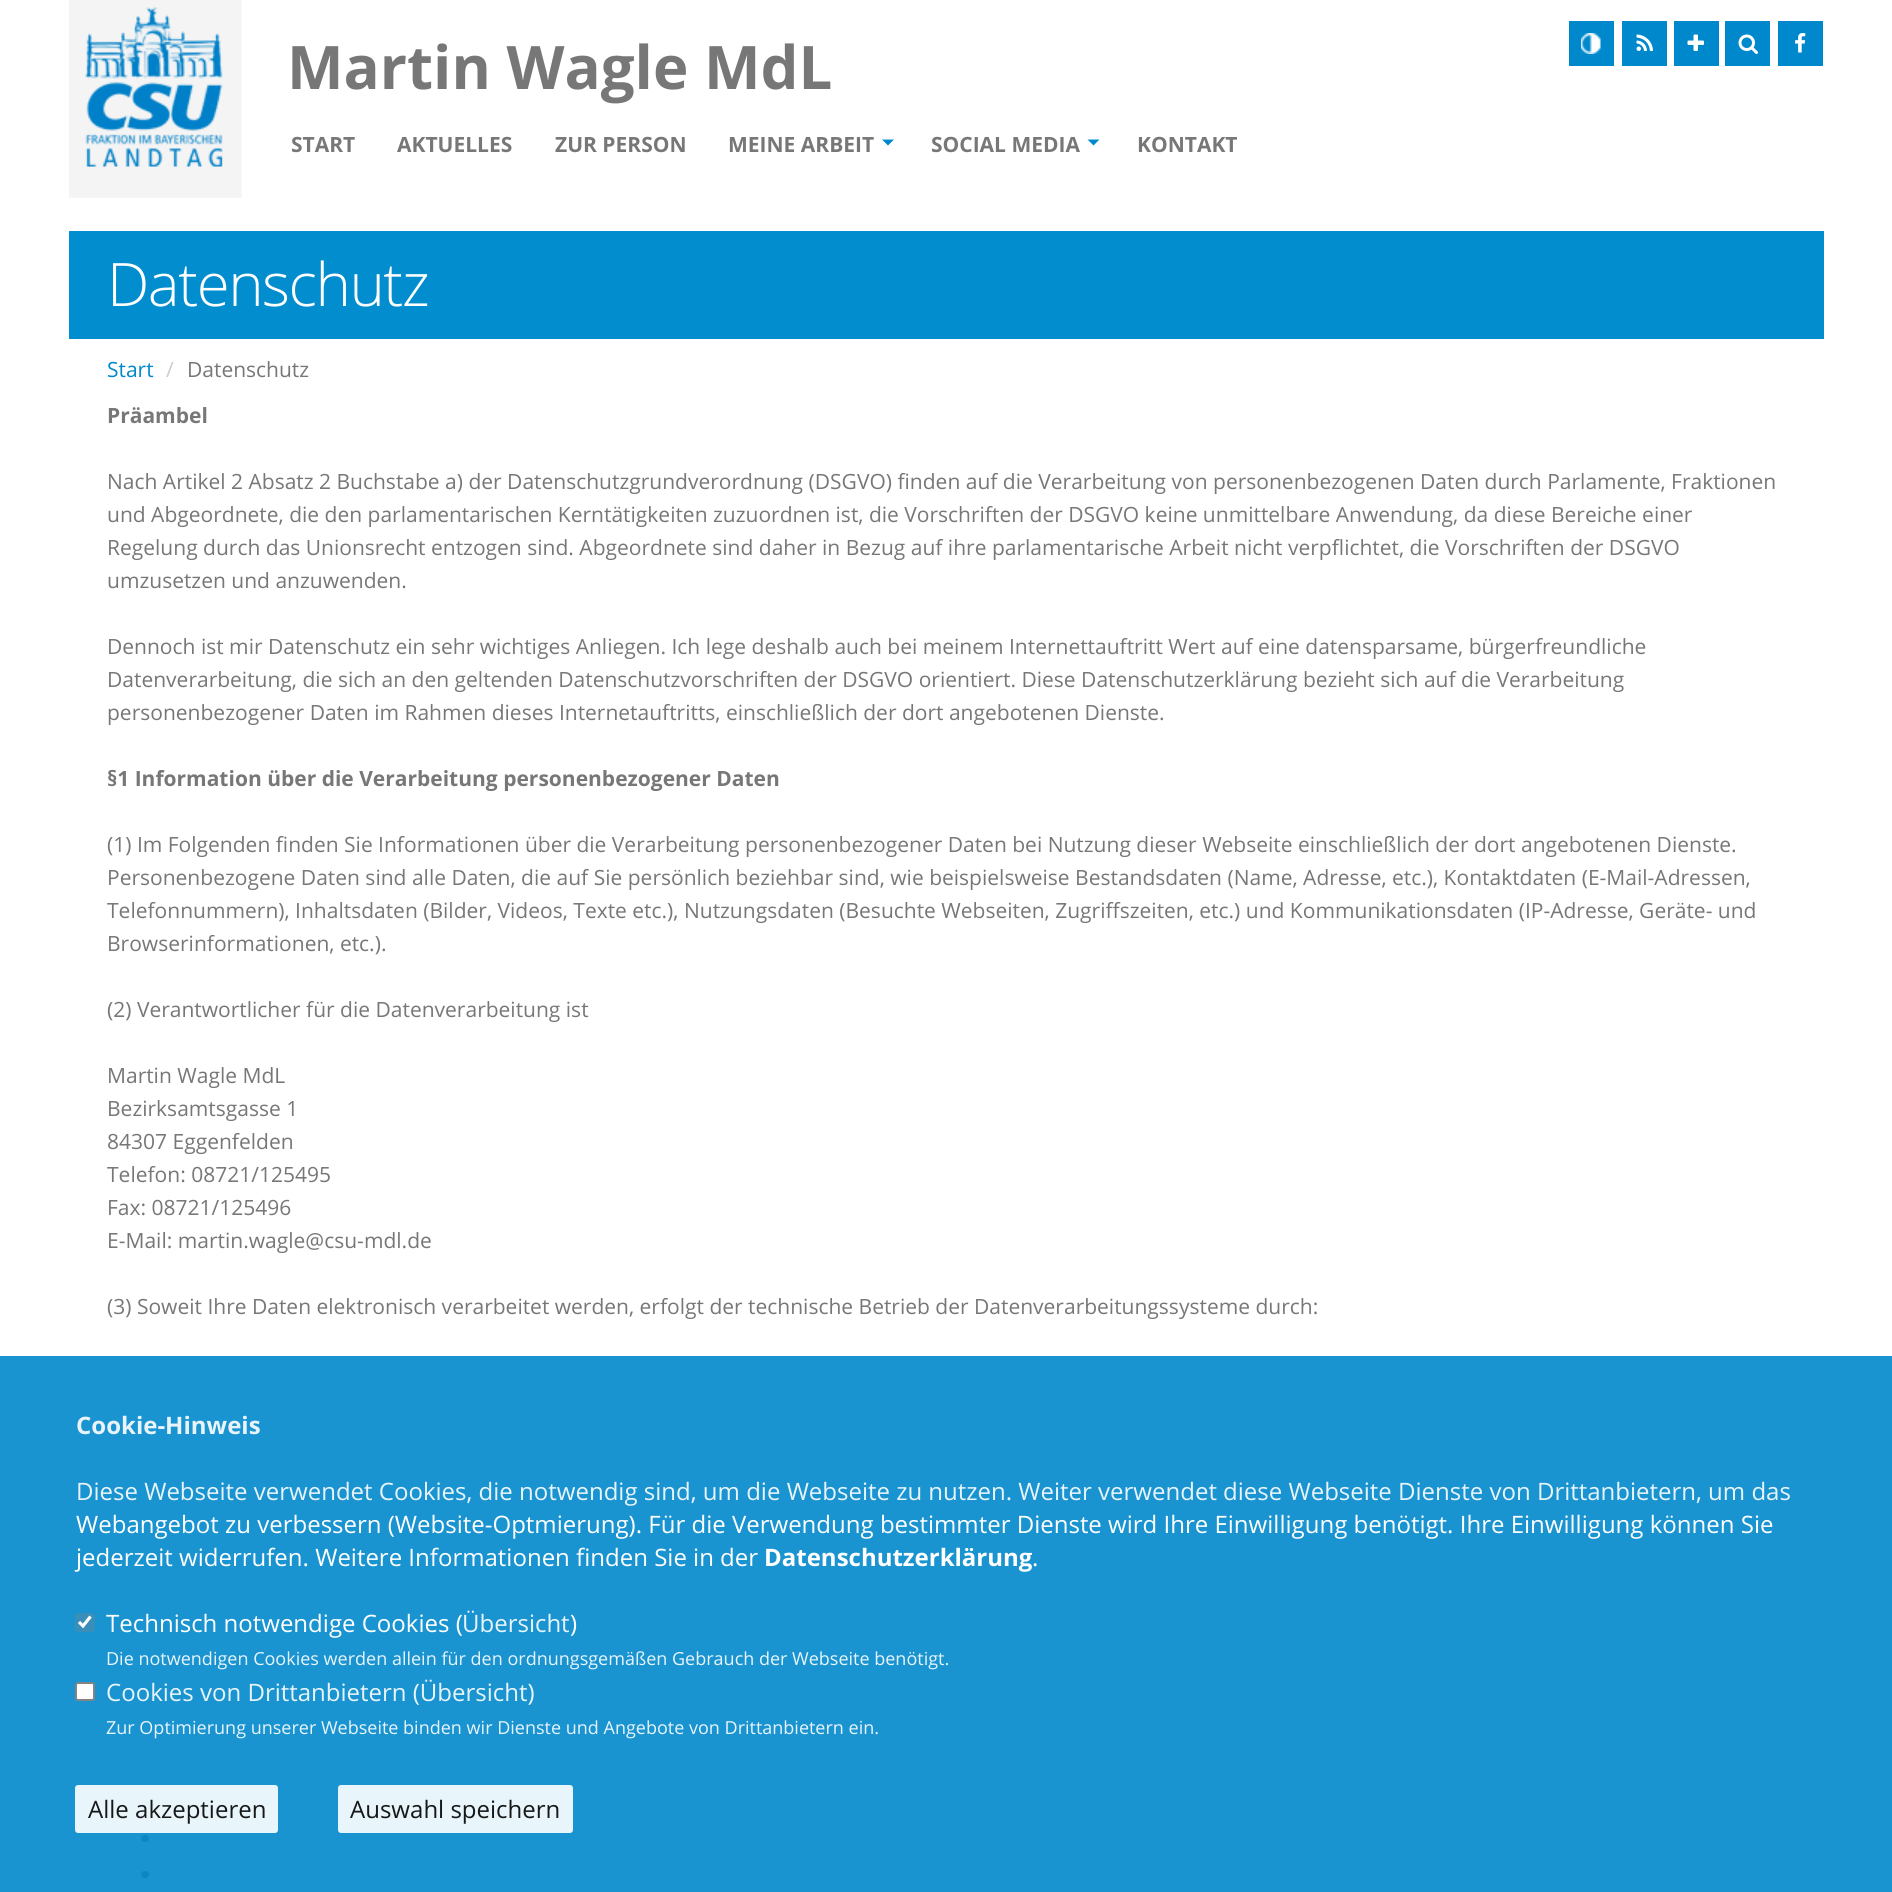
import math
import cairocffi as cairo

surface = cairo.ImageSurface(cairo.FORMAT_RGB24, 1892, 1892)
cr = cairo.Context(surface)
options = cairo.FontOptions()
options.set_hint_metrics(cairo.HINT_METRICS_OFF)
options.set_hint_style(cairo.HINT_STYLE_NONE)
cr.set_font_options(options)
cr.set_miter_limit(4)


def use_color(code):
    cr.set_source_rgb(*(v / 255 for v in bytes.fromhex(code[-6:])))


def spaced_text(x, y, s, letter, word):
    cr.move_to(x, y)
    for ch in s:
        cr.show_text(ch)
        cr.rel_move_to(letter + word * (ch == ' '), 0)


def round_rect(x, y, w, h, r):
    cr.new_sub_path()
    for i, (u, v) in enumerate([(x + w - r, y + h - r), (x + r, y + h - r), (x + r, y + r), (x + w - r, y + r)]):
        cr.arc(u, v, r, i * math.pi / 2, (i + 1) * math.pi / 2)
    cr.close_path()


def picture(path, x, y, w, h):
    cr.save()
    cr.set_source_surface(cairo.ImageSurface.create_from_png(path), x, y)
    cr.rectangle(x, y, w, h)
    cr.fill()
    cr.restore()


use_color("#ffffff")
cr.paint()
use_color("#1994d1")
cr.rectangle(0, 1356, 1892, 536)
cr.fill()
picture("img1.png", 69, 0, 173, 198)
cr.select_font_face("Open Sans", cairo.FONT_SLANT_NORMAL, cairo.FONT_WEIGHT_BOLD)
cr.set_font_size(60)
use_color("#777777")
cr.move_to(287, 89)
cr.show_text("Martin Wagle MdL")
use_color("#0088cc")
cr.rectangle(1569, 21, 45, 45)
cr.fill()
picture("img2.png", 1581, 33, 20, 21)
cr.rectangle(1622, 21, 45, 45)
cr.fill()
picture("img3.png", 1636, 34, 17, 17)
cr.rectangle(1674, 21, 45, 45)
cr.fill()
picture("img4.png", 1687, 34, 17, 17)
cr.rectangle(1725, 21, 45, 45)
cr.fill()
picture("img5.png", 1738, 34, 20, 20)
cr.rectangle(1778, 21, 45, 45)
cr.fill()
picture("img6.png", 1795, 33, 11, 20)
cr.set_font_size(21)
use_color("#777777")
cr.move_to(291, 152)
cr.show_text("START")
cr.move_to(397, 152)
cr.show_text("AKTUELLES")
cr.move_to(555, 152)
cr.show_text("ZUR PERSON")
cr.move_to(728, 152)
cr.show_text("MEINE ARBEIT")
use_color("#0088cc")
cr.new_path()
cr.move_to(882, 139.5)
cr.line_to(894, 139.5)
cr.line_to(888, 145.5)
cr.close_path()
cr.fill()
use_color("#777777")
cr.move_to(931, 152)
cr.show_text("SOCIAL MEDIA")
use_color("#0088cc")
cr.new_path()
cr.move_to(1087.5, 139.5)
cr.line_to(1099.5, 139.5)
cr.line_to(1093.5, 145.5)
cr.close_path()
cr.fill()
use_color("#777777")
cr.move_to(1137, 152)
cr.show_text("KONTAKT")
use_color("#028dce")
cr.rectangle(69, 231, 1755, 108)
cr.fill()
cr.select_font_face("Open Sans Light")
cr.set_font_size(60)
use_color("#ffffff")
spaced_text(107, 306, "Datenschutz", -1.5, 0)
cr.select_font_face("Open Sans")
cr.set_font_size(21)
use_color("#0088cc")
cr.move_to(107, 377)
cr.show_text("Start")
use_color("#cccccc")
cr.move_to(166, 377)
cr.show_text("/")
use_color("#777777")
cr.move_to(187, 377)
cr.show_text("Datenschutz")
cr.select_font_face("Open Sans", cairo.FONT_SLANT_NORMAL, cairo.FONT_WEIGHT_BOLD)
cr.move_to(107, 423)
cr.show_text("Präambel")
cr.select_font_face("Open Sans")
cr.move_to(107, 489)
cr.show_text("Nach Artikel 2 Absatz 2 Buchstabe a) der Datenschutzgrundverordnung (DSGVO) finden auf die Verarbeitung von personenbezogenen Daten durch Parlamente, Fraktionen")
cr.move_to(107, 522)
cr.show_text("und Abgeordnete, die den parlamentarischen Kerntätigkeiten zuzuordnen ist, die Vorschriften der DSGVO keine unmittelbare Anwendung, da diese Bereiche einer")
cr.move_to(107, 555)
cr.show_text("Regelung durch das Unionsrecht entzogen sind. Abgeordnete sind daher in Bezug auf ihre parlamentarische Arbeit nicht verpflichtet, die Vorschriften der DSGVO")
cr.move_to(107, 588)
cr.show_text("umzusetzen und anzuwenden.")
cr.move_to(107, 654)
cr.show_text("Dennoch ist mir Datenschutz ein sehr wichtiges Anliegen. Ich lege deshalb auch bei meinem Internettauftritt Wert auf eine datensparsame, bürgerfreundliche")
cr.move_to(107, 687)
cr.show_text("Datenverarbeitung, die sich an den geltenden Datenschutzvorschriften der DSGVO orientiert. Diese Datenschutzerklärung bezieht sich auf die Verarbeitung")
cr.move_to(107, 720)
cr.show_text("personenbezogener Daten im Rahmen dieses Internetauftritts, einschließlich der dort angebotenen Dienste.")
cr.select_font_face("Open Sans", cairo.FONT_SLANT_NORMAL, cairo.FONT_WEIGHT_BOLD)
cr.move_to(107, 786)
cr.show_text("§1 Information über die Verarbeitung personenbezogener Daten")
cr.select_font_face("Open Sans")
cr.move_to(107, 852)
cr.show_text("(1) Im Folgenden finden Sie Informationen über die Verarbeitung personenbezogener Daten bei Nutzung dieser Webseite einschließlich der dort angebotenen Dienste.")
cr.move_to(107, 885)
cr.show_text("Personenbezogene Daten sind alle Daten, die auf Sie persönlich beziehbar sind, wie beispielsweise Bestandsdaten (Name, Adresse, etc.), Kontaktdaten (E-Mail-Adressen,")
cr.move_to(107, 918)
cr.show_text("Telefonnummern), Inhaltsdaten (Bilder, Videos, Texte etc.), Nutzungsdaten (Besuchte Webseiten, Zugriffszeiten, etc.) und Kommunikationsdaten (IP-Adresse, Geräte- und")
cr.move_to(107, 951)
cr.show_text("Browserinformationen, etc.).")
cr.move_to(107, 1017)
cr.show_text("(2) Verantwortlicher für die Datenverarbeitung ist")
cr.move_to(107, 1083)
cr.show_text("Martin Wagle MdL")
cr.move_to(107, 1116)
cr.show_text("Bezirksamtsgasse 1")
cr.move_to(107, 1149)
cr.show_text("84307 Eggenfelden")
cr.move_to(107, 1182)
cr.show_text("Telefon: 08721/125495")
cr.move_to(107, 1215)
cr.show_text("Fax: 08721/125496")
cr.move_to(107, 1248)
cr.show_text("E-Mail: martin.wagle@csu-mdl.de")
cr.move_to(107, 1314)
cr.show_text("(3) Soweit Ihre Daten elektronisch verarbeitet werden, erfolgt der technische Betrieb der Datenverarbeitungssysteme durch:")
use_color("#0c86c4")
round_rect(141, 1799, 8, 7, 3.5)
cr.fill()
round_rect(141, 1835, 8, 7, 3.5)
cr.fill()
round_rect(141, 1871, 8, 7, 3.5)
cr.fill()
cr.select_font_face("Open Sans", cairo.FONT_SLANT_NORMAL, cairo.FONT_WEIGHT_BOLD)
cr.set_font_size(24)
use_color("#e8f4fa")
cr.move_to(76, 1434)
cr.show_text("Cookie-Hinweis")
cr.select_font_face("Open Sans")
cr.move_to(76, 1500)
cr.show_text("Diese Webseite verwendet Cookies, die notwendig sind, um die Webseite zu nutzen. Weiter verwendet diese Webseite Dienste von Drittanbietern, um das")
use_color("#ffffff")
cr.move_to(76, 1533)
cr.show_text("Webangebot zu verbessern (Website-Optmierung). Für die Verwendung bestimmter Dienste wird Ihre Einwilligung benötigt. Ihre Einwilligung können Sie")
cr.move_to(76, 1566)
cr.show_text("jederzeit widerrufen. Weitere Informationen finden Sie in der")
cr.select_font_face("Open Sans", cairo.FONT_SLANT_NORMAL, cairo.FONT_WEIGHT_BOLD)
cr.move_to(764, 1566)
cr.show_text("Datenschutzerklärung")
cr.select_font_face("Open Sans")
cr.move_to(1032, 1566)
cr.show_text(".")
use_color("#398fba")
round_rect(75, 1613, 20, 19, 3)
cr.fill()
cr.new_path()
cr.move_to(79, 1622)
cr.line_to(83, 1626)
cr.line_to(90.5, 1616.5)
use_color("#ffffff")
cr.set_line_width(3.1)
cr.stroke()
cr.move_to(106, 1632)
cr.show_text("Technisch notwendige Cookies (")
use_color("#e8f4fa")
cr.move_to(462, 1632)
cr.show_text("Übersicht")
use_color("#ffffff")
cr.move_to(570, 1632)
cr.show_text(")")
cr.set_font_size(18)
use_color("#e8f4fa")
cr.move_to(106, 1665)
cr.show_text("Die notwendigen Cookies werden allein für den ordnungsgemäßen Gebrauch der Webseite benötigt.")
use_color("#ffffff")
round_rect(76, 1683, 18, 17, 2)
cr.fill_preserve()
use_color("#848484")
cr.set_line_width(2)
cr.stroke()
cr.set_font_size(24)
use_color("#e8f4fa")
cr.move_to(106, 1701)
cr.show_text("Cookies von Drittanbietern (Übersicht)")
cr.set_font_size(18)
cr.move_to(106, 1734)
cr.show_text("Zur Optimierung unserer Webseite binden wir Dienste und Angebote von Drittanbietern ein.")
cr.set_source_rgba(1, 1, 1, 0.9)
round_rect(75, 1785, 203, 48, 3)
cr.fill()
cr.set_font_size(24)
use_color("#171819")
cr.move_to(88, 1818)
cr.show_text("Alle akzeptieren")
cr.set_source_rgba(1, 1, 1, 0.9)
round_rect(338, 1785, 235, 48, 3)
cr.fill()
use_color("#171819")
cr.move_to(350, 1818)
cr.show_text("Auswahl speichern")
surface.write_to_png("result.png")
